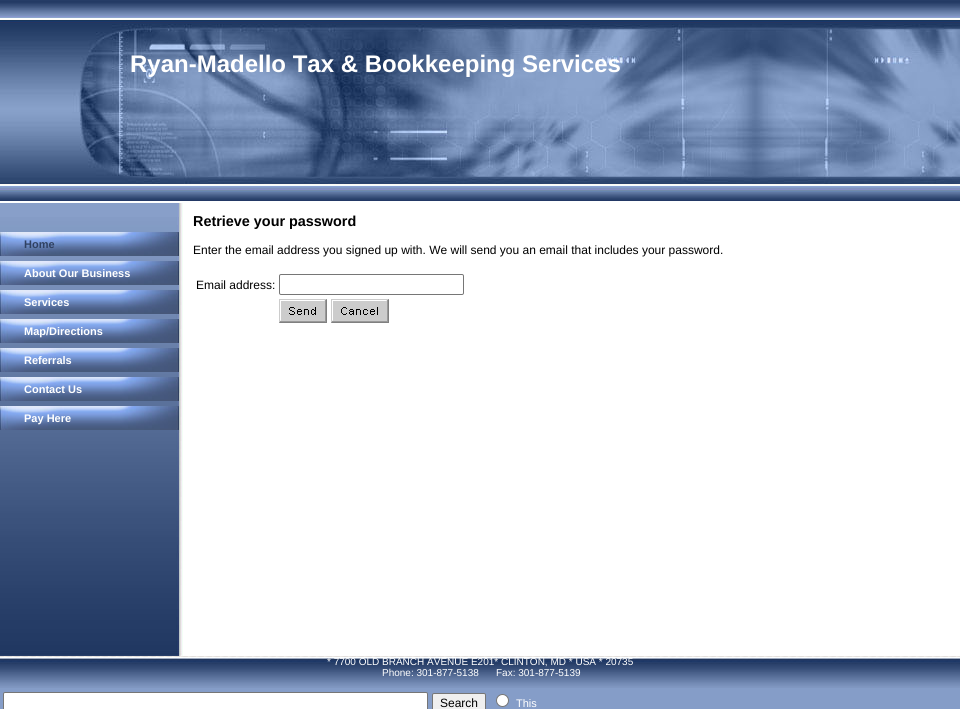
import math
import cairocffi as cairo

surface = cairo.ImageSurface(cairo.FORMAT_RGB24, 960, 709)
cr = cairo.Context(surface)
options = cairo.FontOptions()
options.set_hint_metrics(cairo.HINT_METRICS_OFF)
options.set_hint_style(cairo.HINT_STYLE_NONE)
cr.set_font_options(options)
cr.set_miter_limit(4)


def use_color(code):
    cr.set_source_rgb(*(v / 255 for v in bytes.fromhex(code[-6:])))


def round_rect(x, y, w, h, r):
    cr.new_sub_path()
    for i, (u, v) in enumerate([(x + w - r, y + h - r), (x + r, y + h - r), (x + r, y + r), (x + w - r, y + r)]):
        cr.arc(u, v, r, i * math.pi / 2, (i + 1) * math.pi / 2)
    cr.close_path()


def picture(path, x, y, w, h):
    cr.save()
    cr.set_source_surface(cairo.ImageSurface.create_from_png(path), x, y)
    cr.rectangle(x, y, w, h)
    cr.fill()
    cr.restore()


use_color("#ffffff")
cr.paint()
picture("img1.png", 0, 0, 960, 203)
picture("img2.png", 0, 16, 960, 174)
cr.select_font_face("Liberation Sans", cairo.FONT_SLANT_NORMAL, cairo.FONT_WEIGHT_BOLD)
cr.set_font_size(24)
use_color("#ffffff")
cr.move_to(130, 72)
cr.show_text("Ryan-Madello Tax & Bookkeeping Services")
picture("img3.png", 0, 203, 183, 453)
picture("img4.png", 0, 217, 182, 439)
picture("img5.png", 0, 232, 179, 24)
cr.set_font_size(11)
use_color("#304161")
cr.move_to(24, 248)
cr.show_text("Home")
picture("img5.png", 0, 261, 179, 24)
use_color("#ffffff")
cr.move_to(24, 277)
cr.show_text("About Our Business")
picture("img5.png", 0, 290, 179, 24)
cr.move_to(24, 306)
cr.show_text("Services")
picture("img5.png", 0, 319, 179, 24)
cr.move_to(24, 335)
cr.show_text("Map/Directions")
picture("img5.png", 0, 348, 179, 24)
cr.move_to(24, 364)
cr.show_text("Referrals")
picture("img5.png", 0, 377, 179, 24)
cr.move_to(24, 393)
cr.show_text("Contact Us")
picture("img5.png", 0, 406, 179, 24)
cr.move_to(24, 422)
cr.show_text("Pay Here")
cr.set_font_size(14.4)
use_color("#000000")
cr.move_to(193, 226)
cr.show_text("Retrieve your password")
cr.select_font_face("Liberation Sans")
cr.set_font_size(12)
cr.move_to(193, 254)
cr.show_text("Enter the email address you signed up with. We will send you an email that includes your password.")
cr.move_to(196, 289)
cr.show_text("Email address:")
round_rect(279.5, 274.5, 184, 20, 1.5)
use_color("#767676")
cr.set_line_width(1)
cr.stroke()
picture("img6.png", 279, 299, 48, 24)
picture("img7.png", 331, 299, 58, 24)
use_color("#859dc8")
cr.rectangle(0, 688, 960, 21)
cr.fill()
picture("img8.png", 0, 656, 960, 32)
cr.set_font_size(10)
use_color("#ffffff")
cr.move_to(327, 665)
cr.show_text("* 7700 OLD BRANCH AVENUE E201* CLINTON, MD * USA * 20735")
cr.move_to(382, 676)
cr.show_text("Phone: 301-877-5138")
cr.move_to(496, 676)
cr.show_text("Fax: 301-877-5139")
round_rect(3.5, 692.5, 424, 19, 1.5)
cr.fill_preserve()
use_color("#767676")
cr.stroke()
use_color("#efefef")
round_rect(432.5, 693.5, 53, 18, 1.5)
cr.fill_preserve()
use_color("#767676")
cr.stroke()
cr.set_font_size(12)
use_color("#000000")
cr.move_to(440, 707)
cr.show_text("Search")
use_color("#ffffff")
cr.new_path()
cr.arc(502.5, 700.5, 6, 0, 2 * math.pi)
cr.fill_preserve()
use_color("#767676")
cr.stroke()
cr.set_font_size(11)
use_color("#ffffff")
cr.move_to(516, 707)
cr.show_text("This")
surface.write_to_png("result.png")
